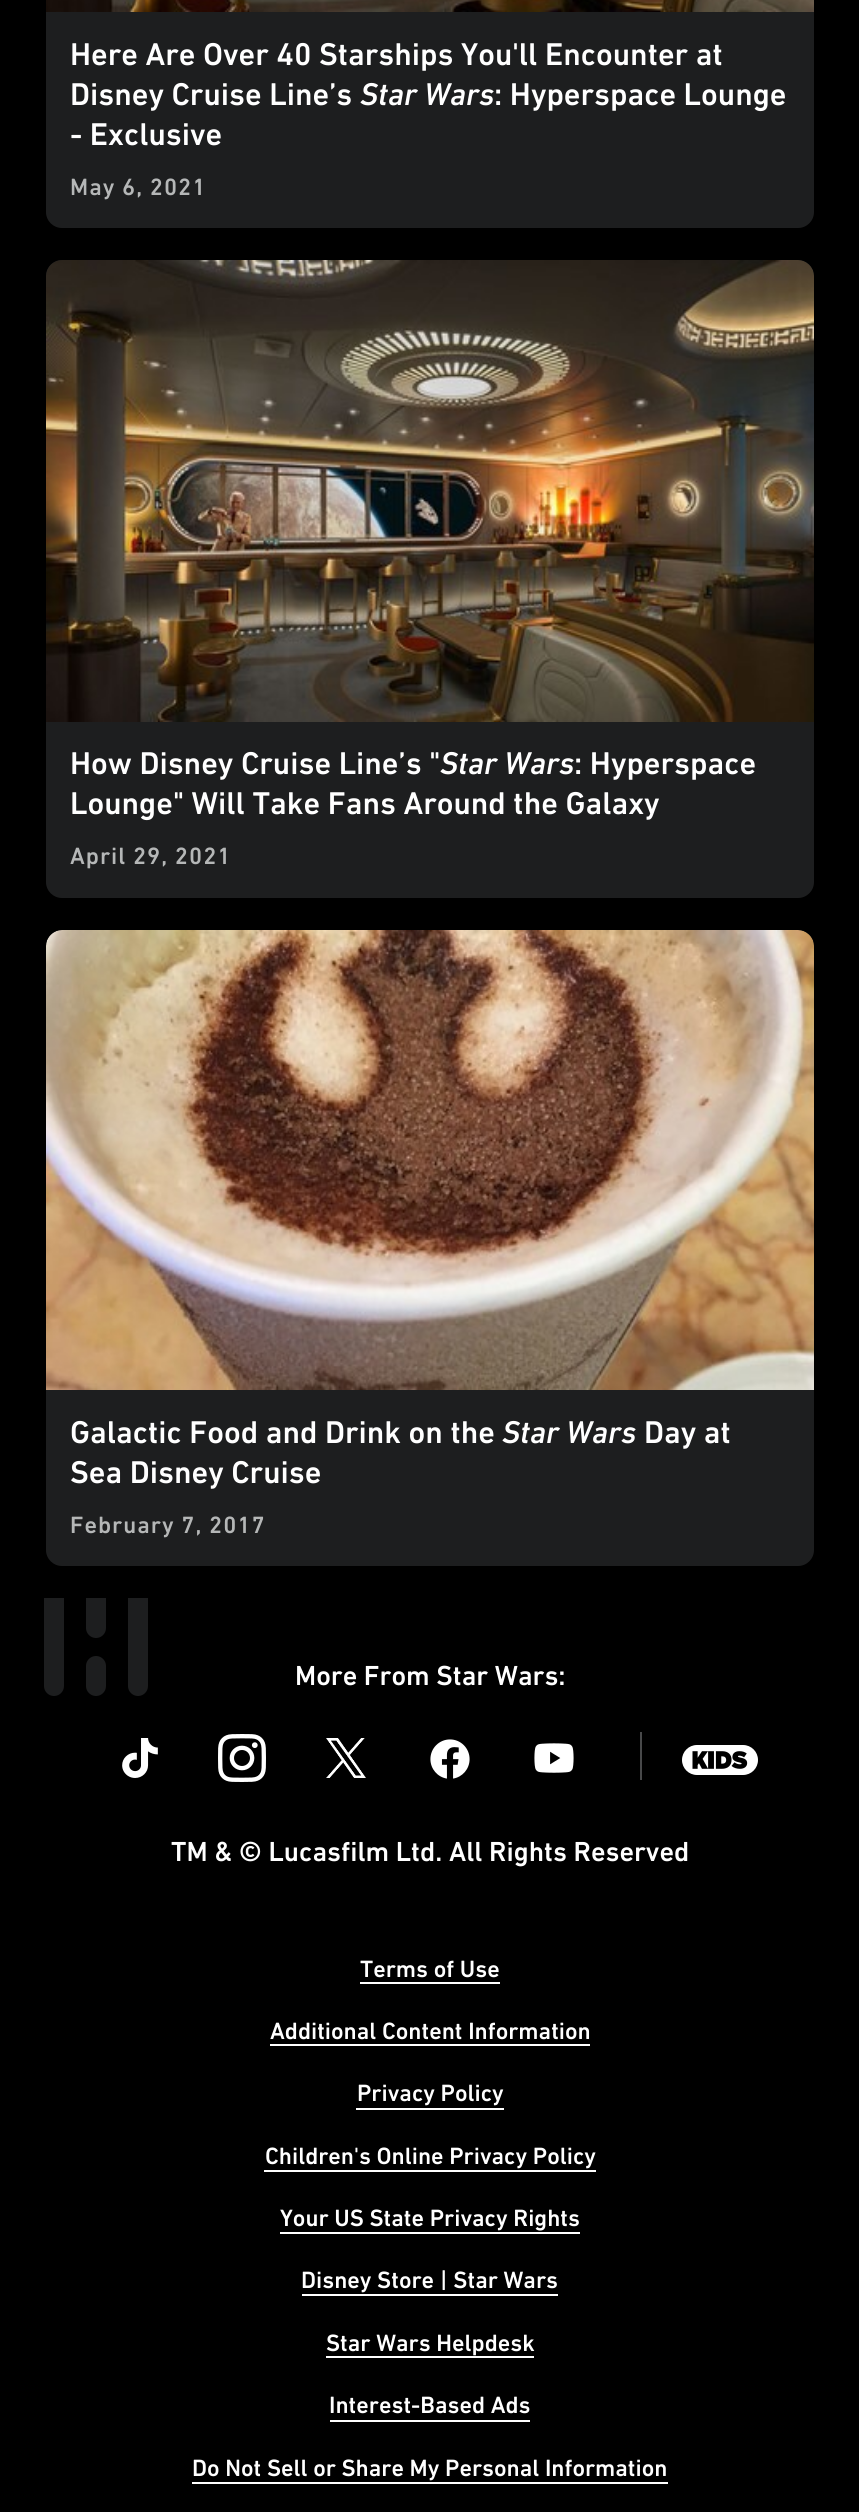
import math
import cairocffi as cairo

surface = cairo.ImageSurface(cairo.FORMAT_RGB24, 859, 2512)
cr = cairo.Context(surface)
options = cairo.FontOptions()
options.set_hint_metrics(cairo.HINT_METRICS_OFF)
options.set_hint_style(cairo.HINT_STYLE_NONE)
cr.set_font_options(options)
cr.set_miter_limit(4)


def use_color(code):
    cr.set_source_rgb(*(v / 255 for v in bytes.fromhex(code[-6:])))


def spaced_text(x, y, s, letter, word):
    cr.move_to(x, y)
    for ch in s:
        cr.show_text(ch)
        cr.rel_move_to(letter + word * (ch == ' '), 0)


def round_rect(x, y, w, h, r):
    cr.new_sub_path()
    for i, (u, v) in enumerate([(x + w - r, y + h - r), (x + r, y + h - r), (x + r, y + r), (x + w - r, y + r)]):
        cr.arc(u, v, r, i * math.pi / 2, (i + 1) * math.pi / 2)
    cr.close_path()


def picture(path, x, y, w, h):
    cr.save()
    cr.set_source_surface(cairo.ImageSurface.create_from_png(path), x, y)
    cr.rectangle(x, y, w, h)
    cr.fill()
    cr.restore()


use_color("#000000")
cr.paint()
use_color("#1d1e1f")
round_rect(46, -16, 768, 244, 16)
cr.fill()
picture("img1.png", 46, 0, 768, 12)
cr.select_font_face("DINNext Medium")
cr.set_font_size(32)
use_color("#ffffff")
cr.move_to(70, 65)
cr.show_text("Here Are Over 40 Starships You'll Encounter at")
cr.move_to(70, 105)
cr.show_text("Disney Cruise Line’s")
cr.select_font_face("DINNext Medium", cairo.FONT_SLANT_ITALIC)
cr.move_to(360, 105)
cr.show_text("Star Wars")
cr.select_font_face("DINNext Medium")
cr.move_to(494, 105)
cr.show_text(": Hyperspace Lounge")
cr.move_to(70, 145)
cr.show_text("- Exclusive")
cr.set_font_size(24)
use_color("#b5b7b7")
spaced_text(70, 195, "May 6, 2021", 1, 0)
use_color("#1d1e1f")
round_rect(46, 260, 768, 638, 16)
cr.fill()
picture("img2.png", 46, 260, 768, 462)
cr.set_font_size(32)
use_color("#ffffff")
cr.move_to(70, 774)
cr.show_text("How Disney Cruise Line’s \"")
cr.select_font_face("DINNext Medium", cairo.FONT_SLANT_ITALIC)
cr.move_to(440, 774)
cr.show_text("Star Wars")
cr.select_font_face("DINNext Medium")
cr.move_to(574, 774)
cr.show_text(": Hyperspace")
cr.move_to(70, 814)
cr.show_text("Lounge\" Will Take Fans Around the Galaxy")
cr.set_font_size(24)
use_color("#b5b7b7")
spaced_text(70, 864, "April 29, 2021", 1, 0)
use_color("#1d1e1f")
round_rect(46, 930, 768, 636, 16)
cr.fill()
picture("img3.png", 46, 930, 768, 460)
cr.set_font_size(32)
use_color("#ffffff")
cr.move_to(70, 1443)
cr.show_text("Galactic Food and Drink on the")
cr.select_font_face("DINNext Medium", cairo.FONT_SLANT_ITALIC)
cr.move_to(502, 1443)
cr.show_text("Star Wars")
cr.select_font_face("DINNext Medium")
cr.move_to(644, 1443)
cr.show_text("Day at")
cr.move_to(70, 1483)
cr.show_text("Sea Disney Cruise")
cr.set_font_size(24)
use_color("#b5b7b7")
spaced_text(70, 1533, "February 7, 2017", 1, 0)
picture("img4.png", 44, 1598, 104, 98)
cr.set_font_size(28)
use_color("#ffffff")
cr.move_to(295, 1685)
cr.show_text("More From Star Wars:")
picture("img5.png", 122, 1738, 36, 40)
picture("img6.png", 218, 1734, 48, 48)
picture("img7.png", 326, 1738, 40, 40)
picture("img8.png", 430, 1739, 40, 40)
picture("img9.png", 534, 1743, 40, 30)
picture("img10.png", 682, 1745, 76, 30)
use_color("#48494a")
cr.rectangle(640, 1732, 2, 48)
cr.fill()
cr.set_font_size(24)
use_color("#ffffff")
cr.move_to(360, 1977)
cr.show_text("Terms of Use")
cr.rectangle(360, 1982, 140, 2)
cr.fill()
cr.move_to(270, 2039)
cr.show_text("Additional Content Information")
cr.rectangle(270, 2044, 320, 2)
cr.fill()
cr.move_to(357, 2101)
cr.show_text("Privacy Policy")
cr.rectangle(356, 2108, 148, 2)
cr.fill()
cr.move_to(265, 2164)
cr.show_text("Children's Online Privacy Policy")
cr.rectangle(264, 2170, 332, 2)
cr.fill()
cr.move_to(280, 2226)
cr.show_text("Your US State Privacy Rights")
cr.rectangle(280, 2232, 300, 2)
cr.fill()
cr.move_to(301, 2288)
cr.show_text("Disney Store | Star Wars")
cr.rectangle(302, 2294, 256, 2)
cr.fill()
cr.move_to(326, 2351)
cr.show_text("Star Wars Helpdesk")
cr.rectangle(326, 2356, 208, 2)
cr.fill()
cr.move_to(329, 2413)
cr.show_text("Interest-Based Ads")
cr.rectangle(330, 2420, 200, 2)
cr.fill()
cr.move_to(192, 2476)
cr.show_text("Do Not Sell or Share My Personal Information")
cr.rectangle(192, 2482, 476, 2)
cr.fill()
cr.set_font_size(28)
cr.move_to(171, 1861)
cr.show_text("TM & © Lucasfilm Ltd. All Rights Reserved")
surface.write_to_png("result.png")
